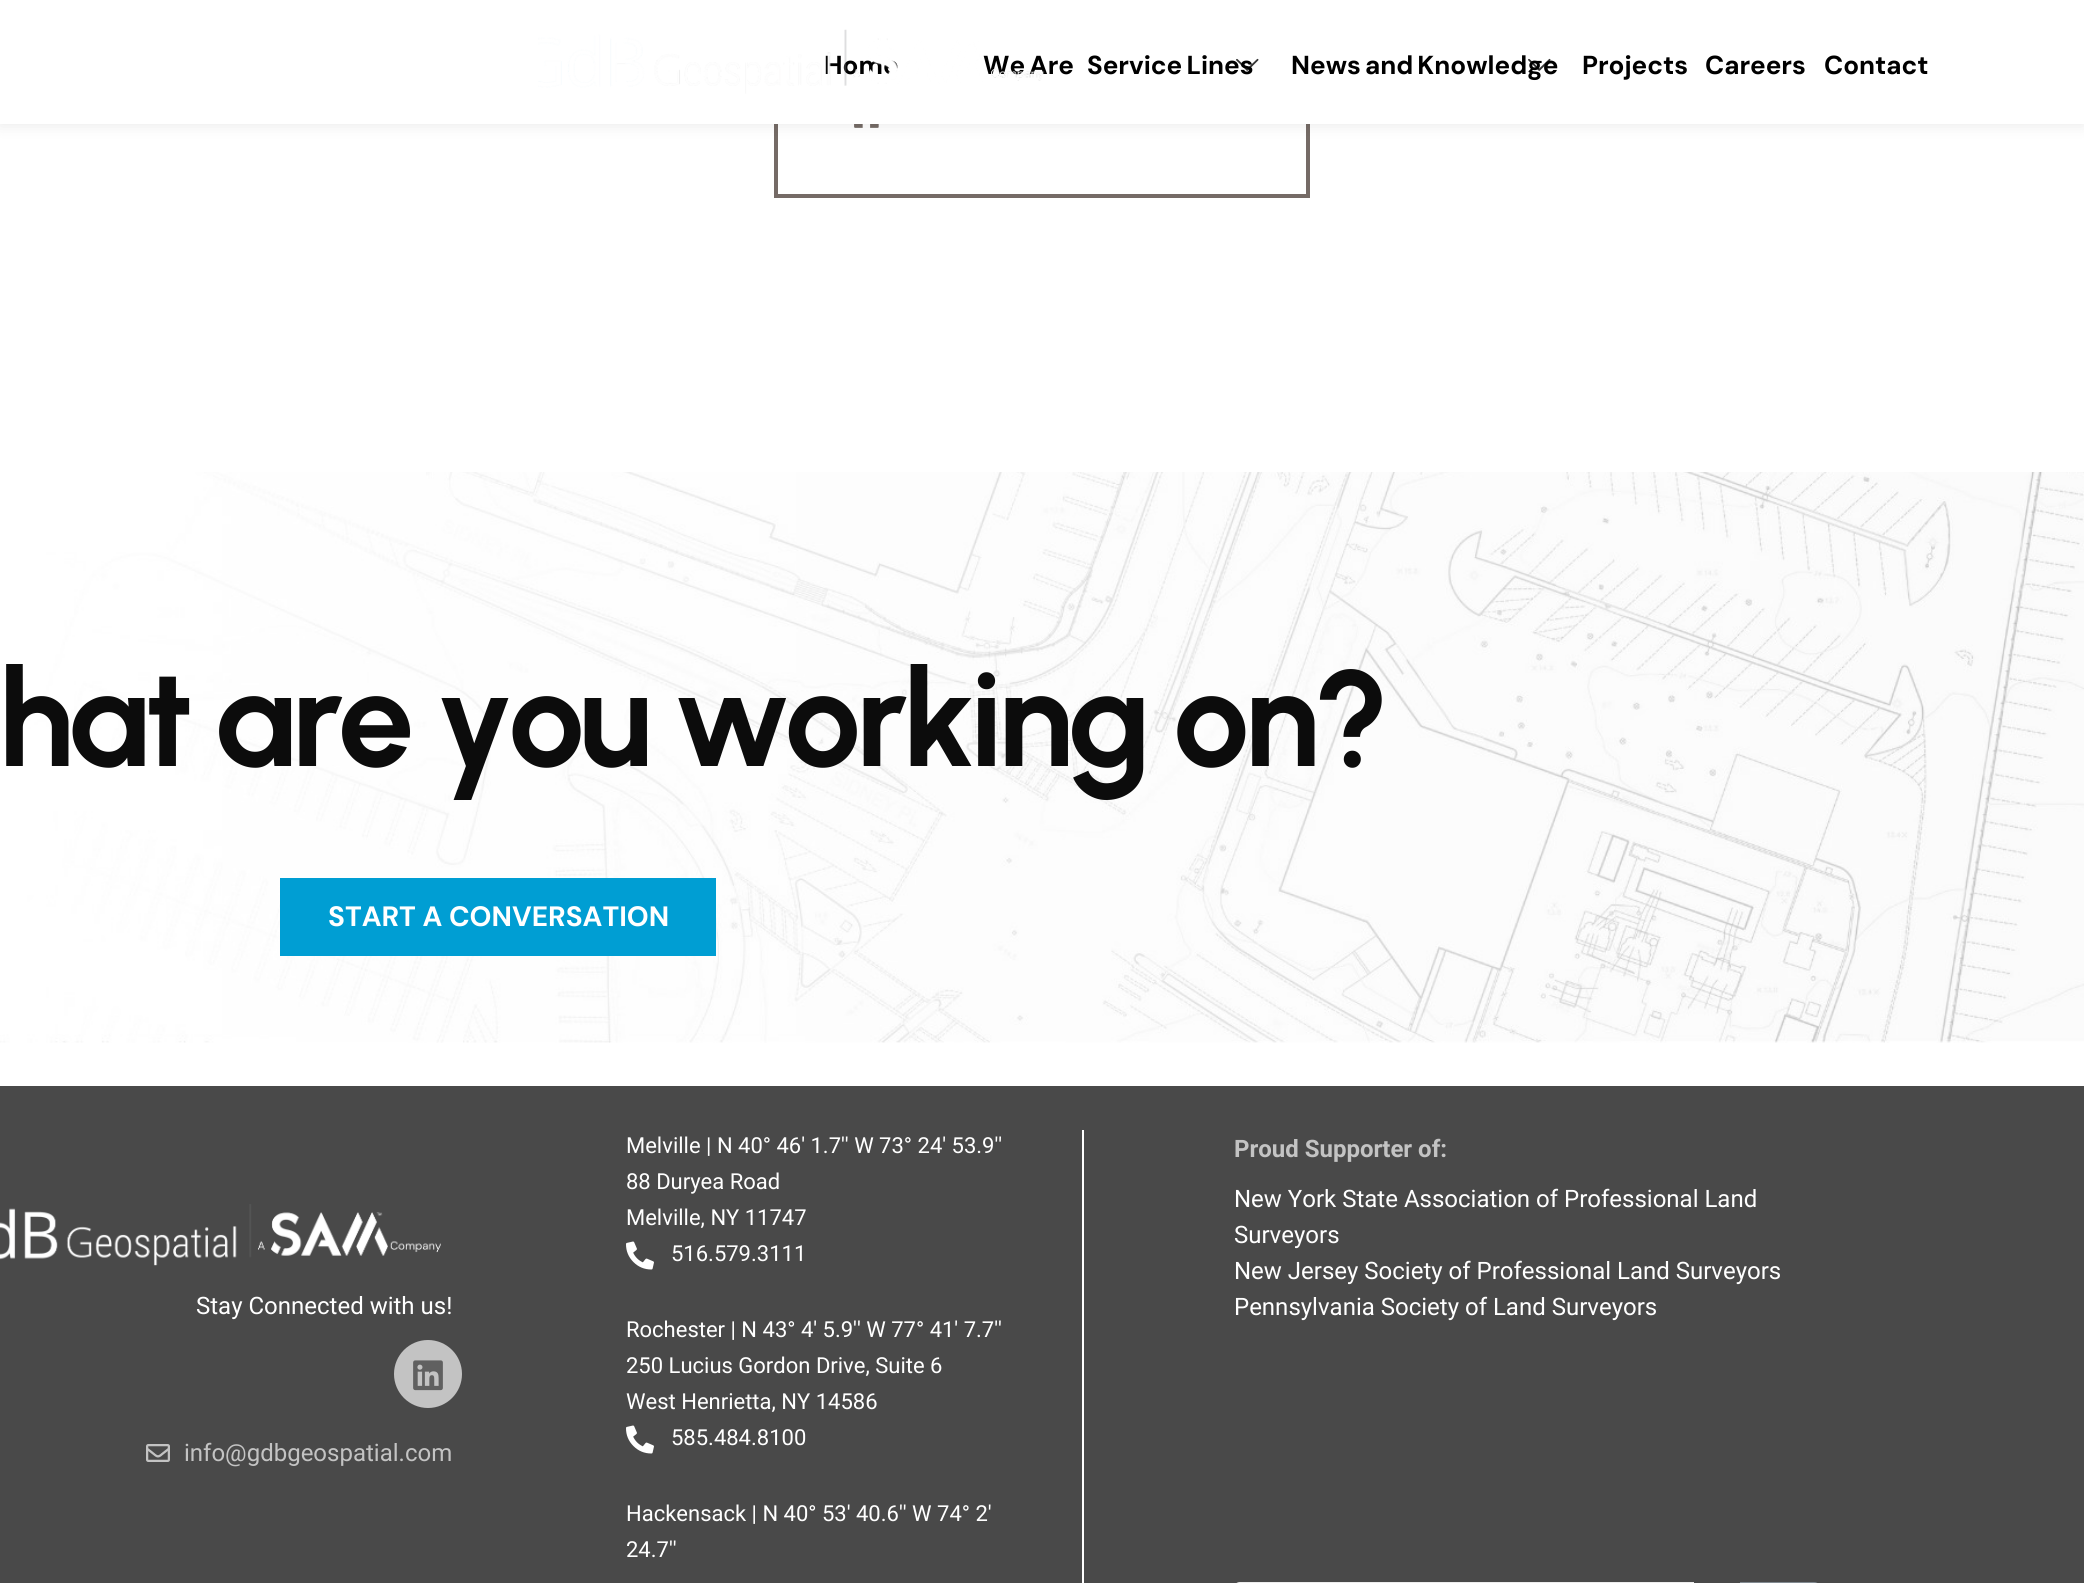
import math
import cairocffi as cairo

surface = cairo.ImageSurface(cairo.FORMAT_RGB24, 2084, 1583)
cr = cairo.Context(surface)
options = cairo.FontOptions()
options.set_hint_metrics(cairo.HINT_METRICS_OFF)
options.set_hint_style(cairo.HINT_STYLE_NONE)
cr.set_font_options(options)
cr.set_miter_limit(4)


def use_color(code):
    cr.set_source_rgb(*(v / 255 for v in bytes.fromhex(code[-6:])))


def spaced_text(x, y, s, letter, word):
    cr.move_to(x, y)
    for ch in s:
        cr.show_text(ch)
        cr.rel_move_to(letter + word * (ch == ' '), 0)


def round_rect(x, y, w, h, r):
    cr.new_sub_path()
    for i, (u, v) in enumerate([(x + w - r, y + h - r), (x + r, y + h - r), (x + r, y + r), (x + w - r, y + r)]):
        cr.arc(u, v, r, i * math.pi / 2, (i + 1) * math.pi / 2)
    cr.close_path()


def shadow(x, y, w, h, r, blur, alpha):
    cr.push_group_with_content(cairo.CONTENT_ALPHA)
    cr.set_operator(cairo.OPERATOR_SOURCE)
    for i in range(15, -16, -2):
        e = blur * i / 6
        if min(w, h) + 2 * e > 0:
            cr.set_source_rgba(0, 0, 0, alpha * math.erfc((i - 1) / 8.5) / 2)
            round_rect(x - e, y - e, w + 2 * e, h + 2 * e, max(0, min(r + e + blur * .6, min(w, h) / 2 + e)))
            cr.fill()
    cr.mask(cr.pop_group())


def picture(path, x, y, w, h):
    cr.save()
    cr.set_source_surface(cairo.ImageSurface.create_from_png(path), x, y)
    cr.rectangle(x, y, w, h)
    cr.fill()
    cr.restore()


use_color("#ffffff")
cr.paint()
cr.rectangle(776, 34, 532, 162)
use_color("#756b66")
cr.set_line_width(4)
cr.stroke()
picture("img1.png", 854, 124, 25, 4)
use_color("#000000")
shadow(0, 0, 2084, 124, 0, 8, 0.1)
use_color("#ffffff")
cr.rectangle(0, 0, 2084, 124)
cr.fill()
cr.select_font_face("DM Sans", cairo.FONT_SLANT_NORMAL, cairo.FONT_WEIGHT_BOLD)
cr.set_font_size(26)
use_color("#000000")
cr.move_to(824, 74)
cr.show_text("Home")
spaced_text(983, 74, "We Are", 0, -2)
picture("img2.png", 538, 29, 507, 65)
spaced_text(1087, 74, "Service Lines", 0, -2)
picture("img3.png", 1236, 58, 23, 13)
spaced_text(1291, 74, "News and Knowledge", 0, -2)
picture("img4.png", 1528, 58, 23, 13)
cr.move_to(1582, 74)
cr.show_text("Projects")
cr.move_to(1705, 74)
cr.show_text("Careers")
cr.move_to(1824, 74)
cr.show_text("Contact")
picture("img5.png", 0, 472, 2084, 571)
cr.select_font_face("Urbanist", cairo.FONT_SLANT_NORMAL, cairo.FONT_WEIGHT_BOLD)
cr.set_font_size(136)
use_color("#0c0c0c")
spaced_text(-2, 766, "hat are you working on?", -5.4, 0)
use_color("#009ed3")
cr.rectangle(280, 878, 436, 78)
cr.fill()
cr.select_font_face("DM Sans", cairo.FONT_SLANT_NORMAL, cairo.FONT_WEIGHT_BOLD)
cr.set_font_size(28)
use_color("#ffffff")
cr.move_to(328, 926)
cr.show_text("START A CONVERSATION")
use_color("#494949")
cr.rectangle(0, 1086, 2084, 497)
cr.fill()
use_color("#ffffff")
cr.rectangle(1082, 1130, 2, 453)
cr.fill()
cr.select_font_face("Roboto")
cr.set_font_size(22)
cr.move_to(626, 1153)
cr.show_text("Melville | N 40° 46' 1.7'' W 73° 24' 53.9''")
cr.move_to(626, 1189)
cr.show_text("88 Duryea Road")
cr.move_to(626, 1225)
cr.show_text("Melville, NY 11747")
picture("img6.png", 626, 1241, 28, 29)
cr.move_to(671, 1261)
cr.show_text("516.579.3111")
cr.move_to(626, 1337)
cr.show_text("Rochester | N 43° 4' 5.9'' W 77° 41' 7.7''")
cr.move_to(626, 1373)
cr.show_text("250 Lucius Gordon Drive, Suite 6")
cr.move_to(626, 1409)
cr.show_text("West Henrietta, NY 14586")
picture("img6.png", 626, 1425, 28, 29)
cr.move_to(671, 1445)
cr.show_text("585.484.8100")
cr.move_to(626, 1521)
cr.show_text("Hackensack | N 40° 53' 40.6'' W 74° 2'")
cr.move_to(626, 1557)
cr.show_text("24.7''")
cr.select_font_face("Roboto", cairo.FONT_SLANT_NORMAL, cairo.FONT_WEIGHT_BOLD)
cr.set_font_size(24)
use_color("#c3c3c3")
cr.move_to(1234, 1157)
cr.show_text("Proud Supporter of:")
cr.select_font_face("Roboto")
use_color("#ffffff")
cr.move_to(1234, 1207)
cr.show_text("New York State Association of Professional Land")
cr.move_to(1234, 1243)
cr.show_text("Surveyors")
cr.move_to(1234, 1279)
cr.show_text("New Jersey Society of Professional Land Surveyors")
cr.move_to(1234, 1315)
cr.show_text("Pennsylvania Society of Land Surveyors")
use_color("#ededed")
cr.new_path()
cr.move_to(1240, 1582)
cr.line_to(1694, 1582)
cr.line_to(1694, 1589)
cr.line_to(1240, 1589)
cr.curve_to(1236.5, 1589, 1234, 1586.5, 1234, 1583)
cr.line_to(1234, 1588)
cr.curve_to(1234, 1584.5, 1236.5, 1582, 1240, 1582)
cr.close_path()
cr.fill()
use_color("#818a91")
cr.new_path()
cr.move_to(1740, 1582)
cr.line_to(1814, 1582)
cr.curve_to(1817.5, 1582, 1820, 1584.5, 1820, 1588)
cr.line_to(1820, 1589)
cr.line_to(1740, 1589)
cr.close_path()
cr.fill()
picture("img7.png", 0, 1204, 441, 62)
use_color("#ffffff")
cr.move_to(196, 1314)
cr.show_text("Stay Connected with us!")
use_color("#c3c3c3")
cr.new_path()
cr.arc(428, 1374, 34, 0, 2 * math.pi)
cr.fill()
picture("img8.png", 413, 1360, 30, 31)
picture("img9.png", 146, 1444, 24, 18)
cr.move_to(184, 1461)
cr.show_text("info@gdbgeospatial.com")
surface.write_to_png("result.png")
